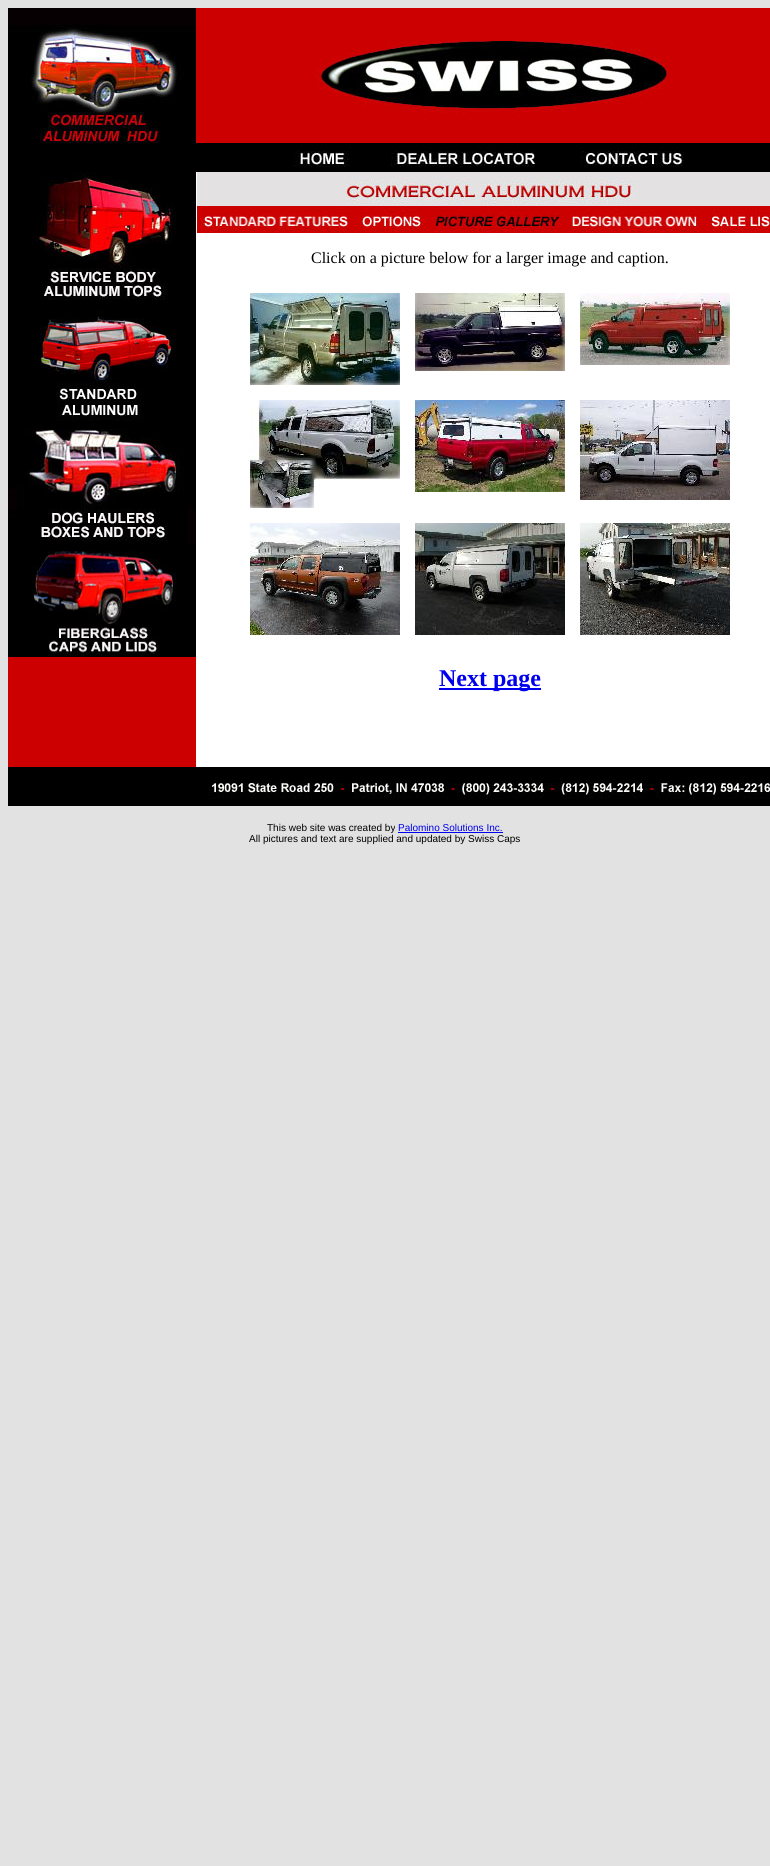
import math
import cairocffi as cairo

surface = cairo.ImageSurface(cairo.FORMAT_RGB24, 770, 1866)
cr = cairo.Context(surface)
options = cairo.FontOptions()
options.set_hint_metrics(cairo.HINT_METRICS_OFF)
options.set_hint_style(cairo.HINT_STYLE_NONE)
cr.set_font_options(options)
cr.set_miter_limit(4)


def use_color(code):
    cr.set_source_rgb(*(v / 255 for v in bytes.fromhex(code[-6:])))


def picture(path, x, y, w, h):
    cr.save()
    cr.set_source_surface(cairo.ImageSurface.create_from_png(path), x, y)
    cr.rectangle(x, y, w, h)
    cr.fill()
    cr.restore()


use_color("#e2e2e2")
cr.paint()
picture("img1.png", 8, 8, 188, 135)
picture("img2.png", 196, 8, 574, 135)
use_color("#000000")
cr.rectangle(8, 143, 762, 29)
cr.fill()
picture("img3.png", 294, 151, 56, 16)
picture("img4.png", 391, 151, 144, 16)
picture("img5.png", 580, 151, 104, 16)
use_color("#cc0001")
cr.rectangle(8, 657, 188, 110)
cr.fill()
picture("img6.png", 8, 172, 188, 130)
picture("img7.png", 8, 302, 188, 119)
picture("img8.png", 8, 421, 188, 122)
picture("img9.png", 8, 543, 188, 114)
use_color("#ffffff")
cr.rectangle(196, 172, 574, 595)
cr.fill()
picture("img10.png", 197, 172, 573, 37)
picture("img11.png", 346, 180, 288, 24)
picture("img12.png", 197, 209, 158, 24)
picture("img13.png", 355, 209, 73, 24)
picture("img14.png", 428, 209, 137, 24)
picture("img15.png", 565, 209, 139, 24)
picture("img16.png", 704, 209, 66, 24)
cr.select_font_face("Liberation Serif")
cr.set_font_size(16)
use_color("#000000")
cr.move_to(311, 263)
cr.show_text("Click on a picture below for a larger image and caption.")
picture("img17.png", 250, 293, 150, 92)
picture("img18.png", 415, 293, 150, 78)
picture("img19.png", 580, 293, 150, 72)
picture("img20.png", 250, 400, 150, 108)
picture("img21.png", 415, 400, 150, 92)
picture("img22.png", 580, 400, 150, 100)
picture("img23.png", 250, 523, 150, 112)
picture("img24.png", 415, 523, 150, 112)
picture("img25.png", 580, 523, 150, 112)
use_color("#0000ee")
cr.rectangle(439, 688, 102, 2)
cr.fill()
cr.select_font_face("Liberation Serif", cairo.FONT_SLANT_NORMAL, cairo.FONT_WEIGHT_BOLD)
cr.set_font_size(24)
cr.move_to(439, 686)
cr.show_text("Next page")
use_color("#000000")
cr.rectangle(8, 767, 762, 39)
cr.fill()
picture("img26.png", 208, 783, 562, 16)
cr.select_font_face("Liberation Sans")
cr.set_font_size(10)
cr.move_to(267, 831)
cr.show_text("This web site was created by")
use_color("#0000ee")
cr.rectangle(398, 832, 105, 1)
cr.fill()
cr.move_to(398, 831)
cr.show_text("Palomino Solutions Inc.")
use_color("#000000")
cr.move_to(249, 842)
cr.show_text("All pictures and text are supplied and updated by Swiss Caps")
surface.write_to_png("result.png")
